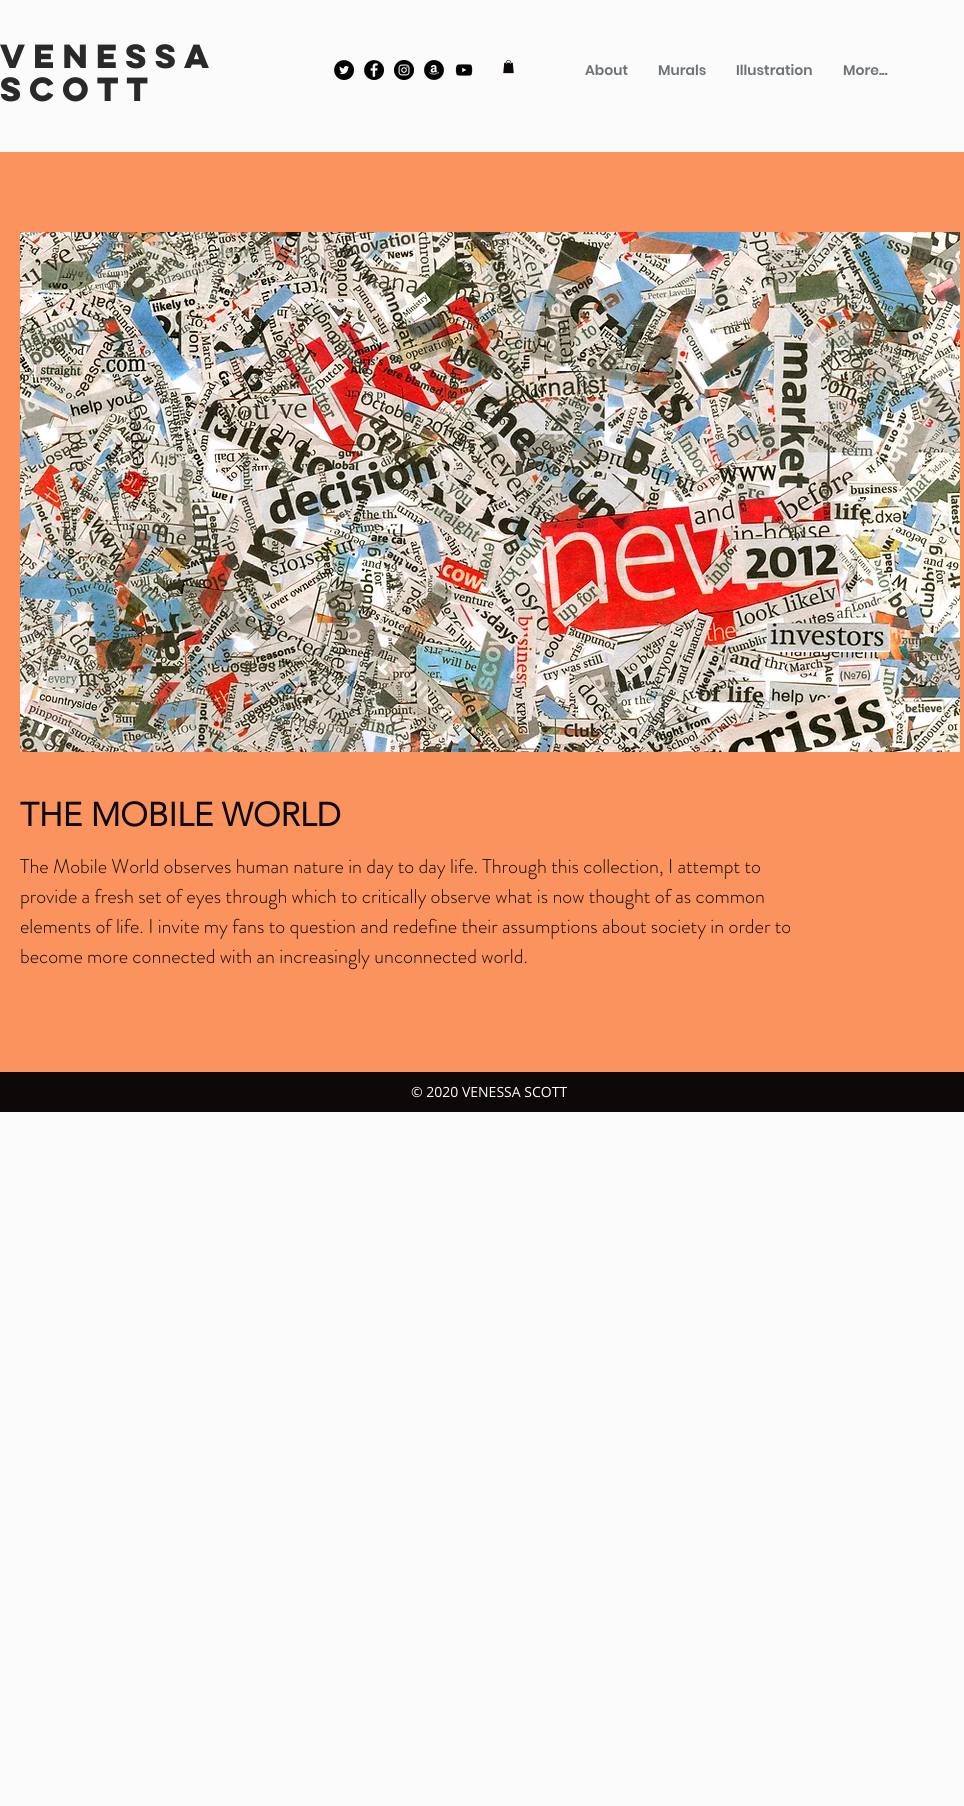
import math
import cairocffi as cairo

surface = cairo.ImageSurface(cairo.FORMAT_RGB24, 964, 1806)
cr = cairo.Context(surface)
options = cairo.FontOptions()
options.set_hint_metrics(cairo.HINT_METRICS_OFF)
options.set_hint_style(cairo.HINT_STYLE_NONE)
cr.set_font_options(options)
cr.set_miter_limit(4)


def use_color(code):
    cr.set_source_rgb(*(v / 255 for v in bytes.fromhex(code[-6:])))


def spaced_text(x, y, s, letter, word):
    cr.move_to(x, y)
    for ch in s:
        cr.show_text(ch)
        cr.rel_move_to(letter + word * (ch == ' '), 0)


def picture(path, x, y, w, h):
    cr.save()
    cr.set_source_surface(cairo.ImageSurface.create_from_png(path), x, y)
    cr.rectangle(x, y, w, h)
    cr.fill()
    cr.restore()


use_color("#fcfbfb")
cr.paint()
cr.select_font_face("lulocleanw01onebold", cairo.FONT_SLANT_NORMAL, cairo.FONT_WEIGHT_BOLD)
cr.set_font_size(30)
use_color("#292929")
spaced_text(0, 68, "VENESSA", 1.5, 0)
spaced_text(0, 101, "SCOTT", 1.5, 0)
picture("img1.png", 334, 60, 20, 20)
picture("img2.png", 364, 60, 20, 20)
picture("img3.png", 394, 60, 20, 20)
picture("img4.png", 424, 60, 20, 20)
picture("img5.png", 455, 64, 18, 12)
picture("img6.png", 503, 60, 11, 14)
cr.select_font_face("Poppins SemiBold")
cr.set_font_size(14)
use_color("#6d7377")
cr.move_to(585, 75)
cr.show_text("About")
cr.move_to(658, 75)
cr.show_text("Murals")
cr.move_to(736, 75)
cr.show_text("Illustration")
cr.move_to(843, 75)
cr.show_text("More...")
use_color("#fa935e")
cr.rectangle(0, 152, 964, 920)
cr.fill()
picture("img7.png", 20, 232, 940, 520)
cr.select_font_face("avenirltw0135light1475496", cairo.FONT_SLANT_NORMAL, cairo.FONT_WEIGHT_BOLD)
cr.set_font_size(33)
use_color("#0d0908")
cr.move_to(20, 826)
cr.show_text("THE MOBILE WORLD")
cr.select_font_face("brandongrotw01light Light")
cr.set_font_size(20)
cr.move_to(20, 873)
cr.show_text("The Mobile World observes human nature in day to day life. Through this collection, I attempt to")
cr.move_to(20, 903)
cr.show_text("provide a fresh set of eyes through which to critically observe what is now thought of as common")
cr.move_to(20, 933)
cr.show_text("elements of life. I invite my fans to question and redefine their assumptions about society in order to")
cr.move_to(20, 963)
cr.show_text("become more connected with an increasingly unconnected world.")
cr.rectangle(0, 1072, 964, 40)
cr.fill()
cr.select_font_face("Open Sans")
cr.set_font_size(14)
use_color("#ffffff")
cr.move_to(411, 1097)
cr.show_text("© 2020 VENESSA SCOTT")
surface.write_to_png("result.png")
